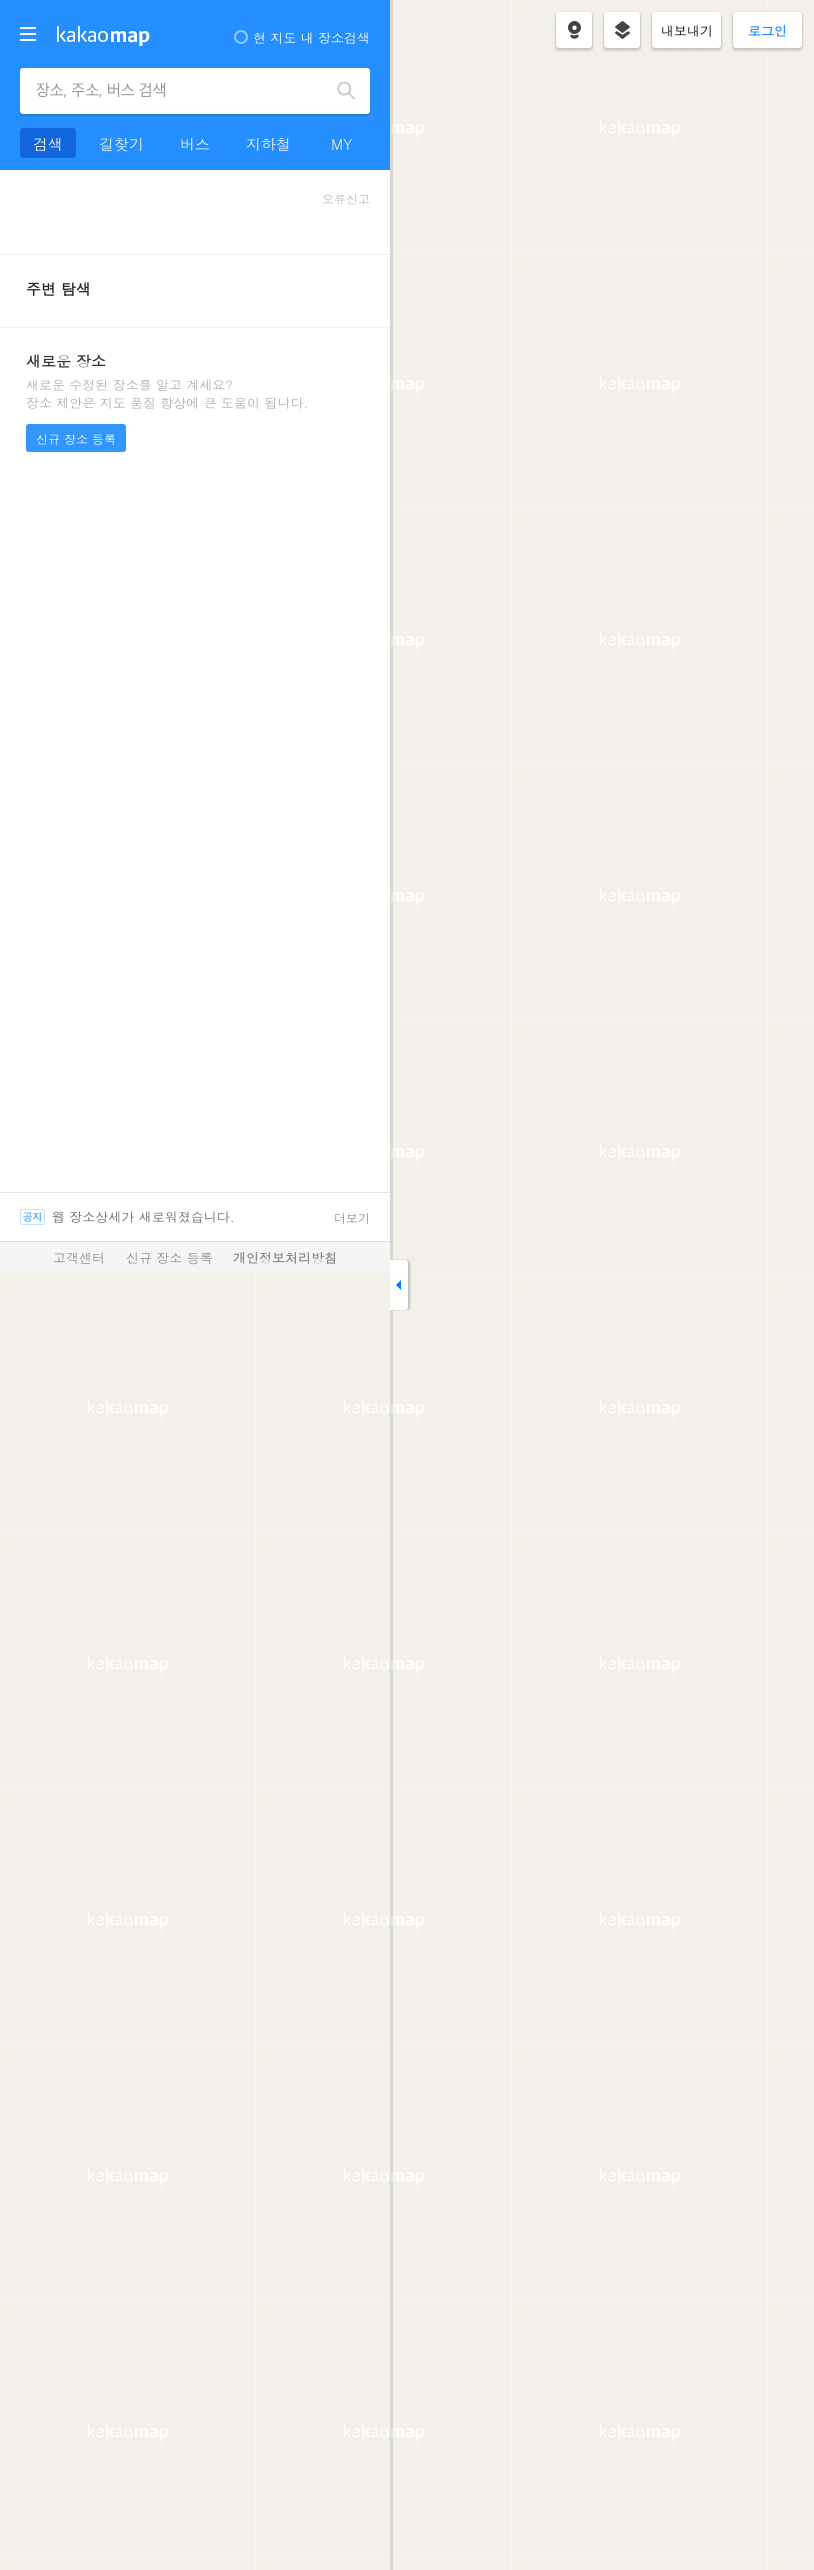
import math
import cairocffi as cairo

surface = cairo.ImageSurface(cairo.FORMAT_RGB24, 814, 2570)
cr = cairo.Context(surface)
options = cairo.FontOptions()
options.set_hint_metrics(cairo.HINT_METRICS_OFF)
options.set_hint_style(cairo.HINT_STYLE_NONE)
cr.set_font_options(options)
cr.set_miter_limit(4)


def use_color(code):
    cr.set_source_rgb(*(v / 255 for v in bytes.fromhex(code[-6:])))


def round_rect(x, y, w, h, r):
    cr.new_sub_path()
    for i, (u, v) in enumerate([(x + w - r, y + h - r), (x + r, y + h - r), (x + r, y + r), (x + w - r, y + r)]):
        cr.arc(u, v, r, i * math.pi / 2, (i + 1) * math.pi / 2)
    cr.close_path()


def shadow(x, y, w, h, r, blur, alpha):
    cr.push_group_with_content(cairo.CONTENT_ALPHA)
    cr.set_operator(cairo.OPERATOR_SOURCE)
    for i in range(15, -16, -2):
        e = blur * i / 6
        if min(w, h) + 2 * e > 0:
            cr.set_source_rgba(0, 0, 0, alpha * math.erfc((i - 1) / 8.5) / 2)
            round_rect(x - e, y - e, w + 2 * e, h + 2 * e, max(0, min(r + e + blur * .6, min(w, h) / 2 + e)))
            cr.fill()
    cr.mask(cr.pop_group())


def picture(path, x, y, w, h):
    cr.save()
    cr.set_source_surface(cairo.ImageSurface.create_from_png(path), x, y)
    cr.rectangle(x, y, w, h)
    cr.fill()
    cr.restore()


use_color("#ffffff")
cr.paint()
picture("img7.png", 0, 0, 814, 2570)
use_color("#258fff")
cr.rectangle(0, 0, 390, 169)
cr.fill()
picture("img1.png", 20, 27, 16, 14)
picture("img2.png", 56, 26, 94, 20)
picture("img3.png", 234, 30, 14, 14)
cr.select_font_face("Dotum")
cr.set_font_size(13)
use_color("#ffffff")
cr.move_to(253, 43)
cr.show_text("현 지도 내 장소검색")
use_color("#000000")
shadow(20, 70, 350, 46, 3, 0.5, 0.15)
use_color("#ffffff")
round_rect(20, 68, 350, 46, 3)
cr.fill()
picture("img4.png", 36, 82, 130, 16)
picture("img5.png", 337, 81, 18, 19)
cr.set_source_rgba(0, 0, 0, 0.11)
cr.rectangle(390, 0, 3, 2570)
cr.fill()
picture("img6.png", 390, 1259, 21, 52)
picture("img8.png", 554, 11, 40, 41)
picture("img9.png", 602, 11, 40, 41)
picture("img10.png", 650, 11, 73, 41)
use_color("#000000")
cr.move_to(661, 36)
cr.show_text("내보내기")
picture("img11.png", 731, 11, 73, 41)
cr.select_font_face("Dotum", cairo.FONT_SLANT_NORMAL, cairo.FONT_WEIGHT_BOLD)
use_color("#1f8cff")
cr.move_to(748, 36)
cr.show_text("로그인")
use_color("#1265dd")
round_rect(20, 128, 56, 30, 3)
cr.fill()
cr.select_font_face("Dotum")
cr.set_font_size(15)
use_color("#ffffff")
cr.move_to(33, 150)
cr.show_text("검색")
use_color("#e9f4ff")
cr.move_to(99, 150)
cr.show_text("길찾기")
cr.move_to(180, 150)
cr.show_text("버스")
cr.move_to(246, 150)
cr.show_text("지하철")
cr.move_to(331, 150)
cr.show_text("MY")
use_color("#248cf9")
cr.rectangle(0, 169, 390, 1)
cr.fill()
use_color("#ffffff")
cr.rectangle(0, 170, 390, 1022)
cr.fill()
use_color("#eeeeee")
cr.rectangle(0, 254, 390, 1)
cr.fill()
cr.set_font_size(12)
use_color("#b8b8b8")
cr.move_to(322, 204)
cr.show_text("오류신고")
cr.select_font_face("Dotum", cairo.FONT_SLANT_NORMAL, cairo.FONT_WEIGHT_BOLD)
cr.set_font_size(15)
use_color("#222222")
cr.move_to(26, 295)
cr.show_text("주변 탐색")
use_color("#f3f3f3")
cr.rectangle(0, 327, 390, 1)
cr.fill()
use_color("#333333")
cr.move_to(26, 367)
cr.show_text("새로운 장소")
cr.select_font_face("Dotum")
cr.set_font_size(13)
use_color("#acacac")
cr.move_to(26, 390)
cr.show_text("새로운 수정된 장소를 알고 계세요?")
cr.move_to(26, 408)
cr.show_text("장소 제안은 지도 품질 향상에 큰 도움이 됩니다.")
use_color("#3396ff")
round_rect(26, 424, 100, 28, 3)
cr.fill()
round_rect(26.5, 424.5, 99, 27, 2.5)
cr.set_source_rgba(0.2, 0.588, 1, 0.5)
cr.set_line_width(1)
cr.stroke()
cr.set_font_size(12)
use_color("#ffffff")
cr.move_to(36, 444)
cr.show_text("신규 장소 등록")
cr.rectangle(0, 1193, 390, 48)
cr.fill()
use_color("#e6e6e6")
cr.rectangle(0, 1192, 390, 1)
cr.fill()
picture("img12.png", 20, 1209, 25, 16)
cr.set_font_size(13)
use_color("#666666")
cr.move_to(52, 1222)
cr.show_text("웹 장소상세가 새로워졌습니다.")
cr.set_font_size(12)
use_color("#888888")
cr.move_to(334, 1223)
cr.show_text("더보기")
use_color("#f5f5f5")
cr.rectangle(0, 1242, 390, 30)
cr.fill()
use_color("#dddddd")
cr.rectangle(0, 1241, 390, 1)
cr.fill()
cr.set_font_size(13)
use_color("#888888")
cr.move_to(53, 1263)
cr.show_text("고객센터")
cr.move_to(126, 1263)
cr.show_text("신규 장소 등록")
cr.select_font_face("Dotum", cairo.FONT_SLANT_NORMAL, cairo.FONT_WEIGHT_BOLD)
cr.move_to(233, 1263)
cr.show_text("개인정보처리방침")
surface.write_to_png("result.png")
